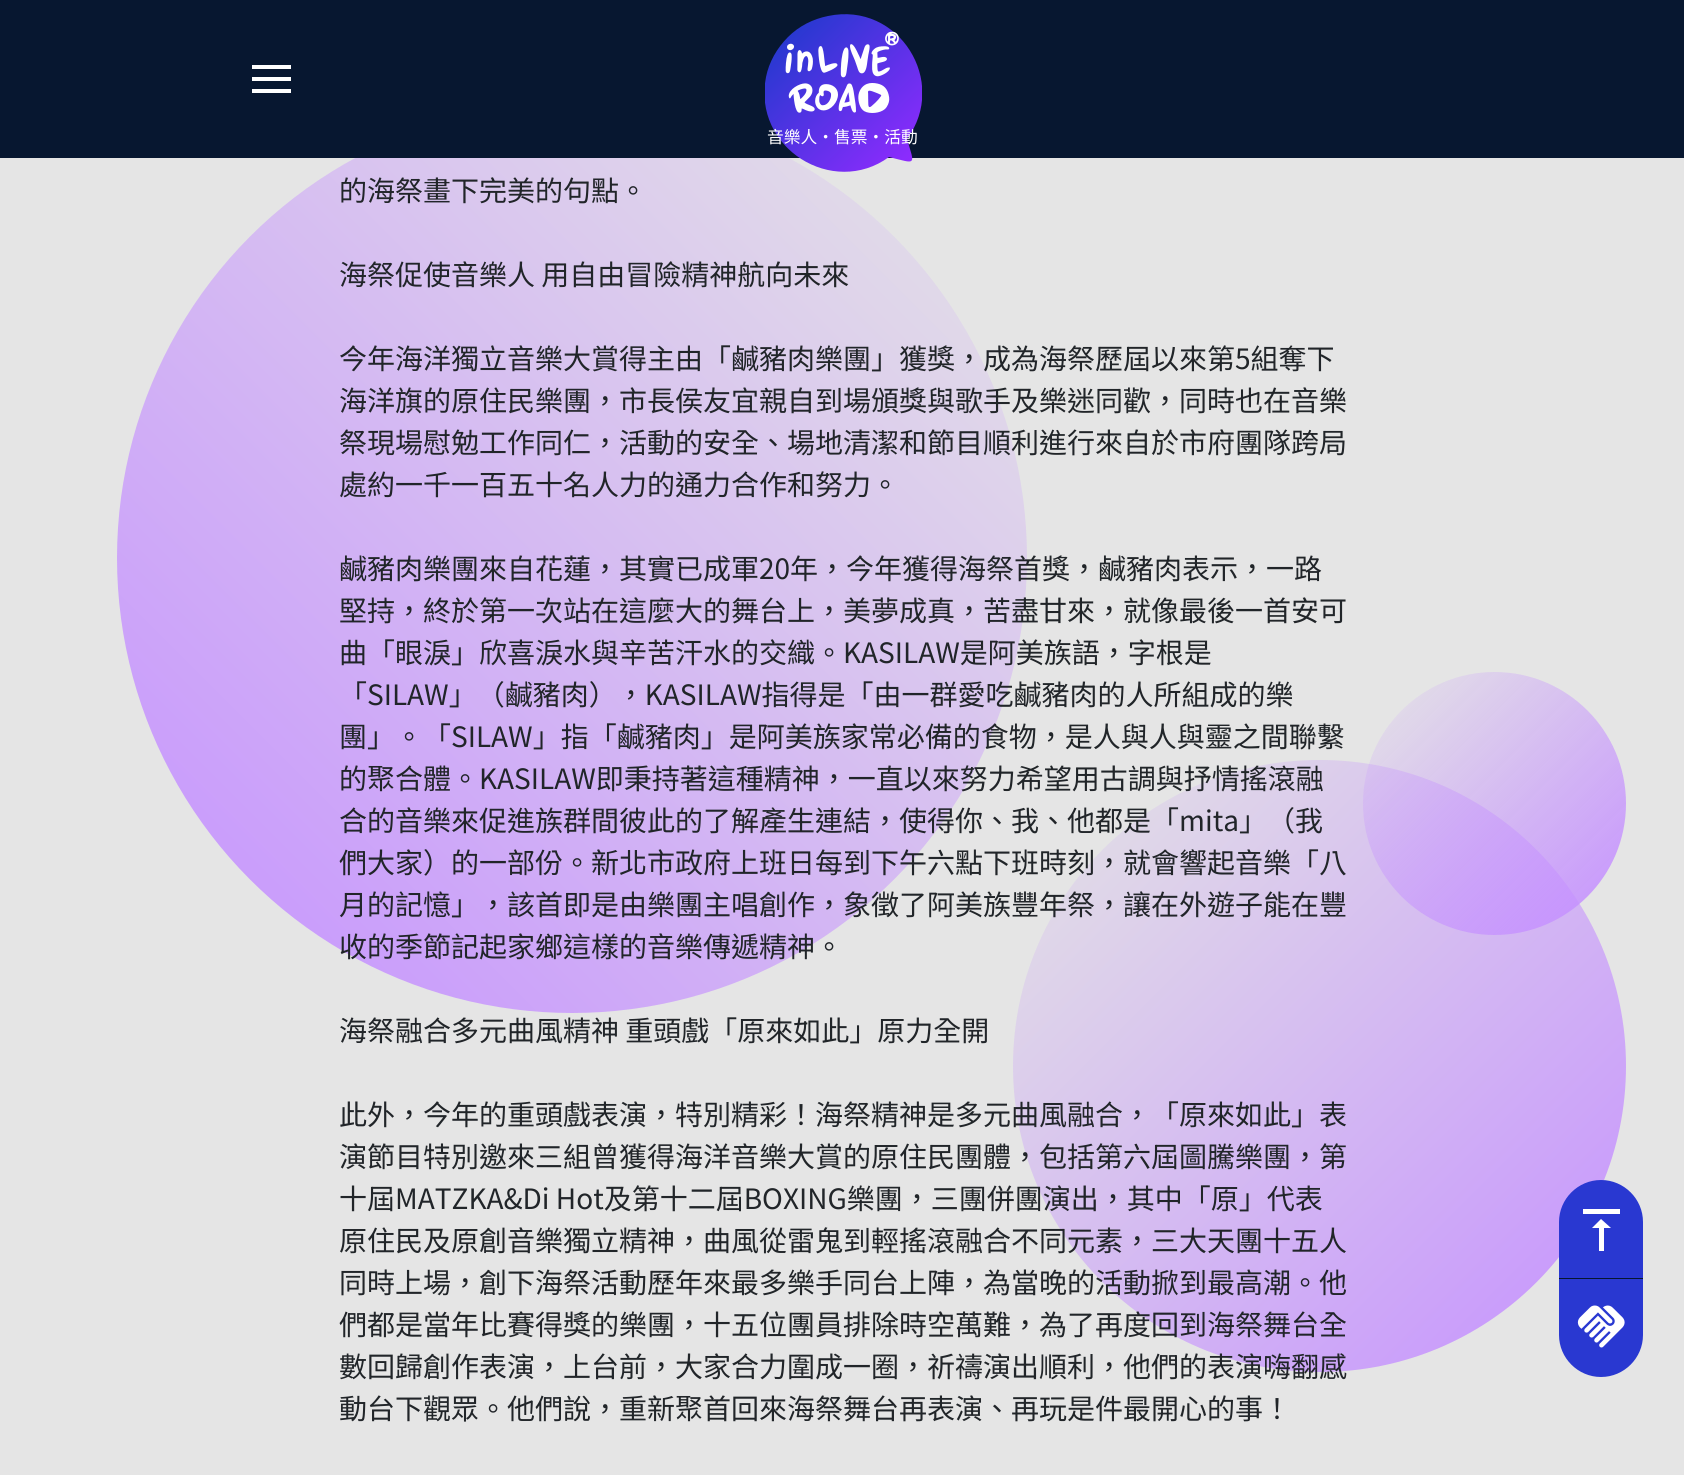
import math
import cairocffi as cairo

surface = cairo.ImageSurface(cairo.FORMAT_RGB24, 1684, 1475)
cr = cairo.Context(surface)
options = cairo.FontOptions()
options.set_hint_metrics(cairo.HINT_METRICS_OFF)
options.set_hint_style(cairo.HINT_STYLE_NONE)
cr.set_font_options(options)
cr.set_miter_limit(4)


def use_color(code):
    cr.set_source_rgb(*(v / 255 for v in bytes.fromhex(code[-6:])))


def round_rect(x, y, w, h, r):
    cr.new_sub_path()
    for i, (u, v) in enumerate([(x + w - r, y + h - r), (x + r, y + h - r), (x + r, y + r), (x + w - r, y + r)]):
        cr.arc(u, v, r, i * math.pi / 2, (i + 1) * math.pi / 2)
    cr.close_path()


def picture(path, x, y, w, h):
    cr.save()
    cr.set_source_surface(cairo.ImageSurface.create_from_png(path), x, y)
    cr.rectangle(x, y, w, h)
    cr.fill()
    cr.restore()


use_color("#e5e5e5")
cr.paint()
gradient = cairo.LinearGradient(117, 1013, 1027, 103)
gradient.add_color_stop_rgba(0, 0.773, 0.569, 1, 1)
gradient.add_color_stop_rgba(1, 0.898, 0.898, 0.898, 1)
cr.set_source(gradient)
cr.arc(572, 558, 455, 0, 2 * math.pi)
cr.fill()
use_color("#071730")
cr.rectangle(0, 0, 1684, 158)
cr.fill()
use_color("#ffffff")
cr.rectangle(252, 77, 39, 4)
cr.fill()
cr.rectangle(252, 65, 39, 4)
cr.fill()
cr.rectangle(252, 89, 39, 4)
cr.fill()
cr.save()
cr.rectangle(765, 14, 157, 158)
cr.clip()
gradient = cairo.LinearGradient(788, 37, 911, 161)
gradient.add_color_stop_rgba(0, 0.161, 0.22, 0.82, 1)
gradient.add_color_stop_rgba(1, 0.557, 0.169, 0.996, 1)
cr.set_source(gradient)
cr.new_path()
cr.move_to(907, 139)
cr.curve_to(949, 82, 899, 1, 828, 16)
cr.curve_to(813, 19, 799, 26, 788, 37)
cr.curve_to(777, 48, 769, 62, 766, 77)
cr.curve_to(752, 148, 833, 198, 889, 157)
cr.curve_to(917, 164, 915, 166, 907, 139)
cr.close_path()
cr.fill()
cr.restore()
picture("img1.png", 785, 31, 114, 82)
cr.select_font_face("Noto Sans TC")
cr.set_font_size(16.75)
cr.move_to(767, 143)
cr.show_text("音樂人·售票·活動")
gradient = cairo.LinearGradient(1626, 1372, 1013, 760)
gradient.add_color_stop_rgba(0, 0.773, 0.569, 1, 1)
gradient.add_color_stop_rgba(1, 0.894, 0.894, 0.894, 1)
cr.set_source(gradient)
round_rect(1013, 760, 613, 612, 306)
cr.fill()
gradient = cairo.LinearGradient(1626, 935, 1363, 672)
gradient.add_color_stop_rgba(0, 0.773, 0.569, 1, 1)
gradient.add_color_stop_rgba(1, 0.773, 0.569, 1, 0)
cr.set_source(gradient)
cr.arc(1494.5, 803.5, 131.5, 0, 2 * math.pi)
cr.fill()
cr.set_font_size(28)
use_color("#212529")
cr.move_to(339, 201)
cr.show_text("的海祭畫下完美的句點。")
cr.move_to(339, 285)
cr.show_text("海祭促使音樂人 用自由冒險精神航向未來")
cr.move_to(339, 369)
cr.show_text("今年海洋獨立音樂大賞得主由「鹹豬肉樂團」獲獎，成為海祭歷屆以來第5組奪下")
cr.move_to(339, 411)
cr.show_text("海洋旗的原住民樂團，市長侯友宜親自到場頒獎與歌手及樂迷同歡，同時也在音樂")
cr.move_to(339, 453)
cr.show_text("祭現場慰勉工作同仁，活動的安全、場地清潔和節目順利進行來自於市府團隊跨局")
cr.move_to(339, 495)
cr.show_text("處約一千一百五十名人力的通力合作和努力。")
cr.move_to(339, 579)
cr.show_text("鹹豬肉樂團來自花蓮，其實已成軍20年，今年獲得海祭首獎，鹹豬肉表示，一路")
cr.move_to(339, 621)
cr.show_text("堅持，終於第一次站在這麼大的舞台上，美夢成真，苦盡甘來，就像最後一首安可")
cr.move_to(339, 663)
cr.show_text("曲「眼淚」欣喜淚水與辛苦汗水的交織。KASILAW是阿美族語，字根是")
cr.move_to(339, 705)
cr.show_text("「SILAW」（鹹豬肉），KASILAW指得是「由一群愛吃鹹豬肉的人所組成的樂")
cr.move_to(339, 747)
cr.show_text("團」。「SILAW」指「鹹豬肉」是阿美族家常必備的食物，是人與人與靈之間聯繫")
cr.move_to(339, 789)
cr.show_text("的聚合體。KASILAW即秉持著這種精神，一直以來努力希望用古調與抒情搖滾融")
cr.move_to(339, 831)
cr.show_text("合的音樂來促進族群間彼此的了解產生連結，使得你、我、他都是「mita」（我")
cr.move_to(339, 873)
cr.show_text("們大家）的一部份。新北市政府上班日每到下午六點下班時刻，就會響起音樂「八")
cr.move_to(339, 915)
cr.show_text("月的記憶」，該首即是由樂團主唱創作，象徵了阿美族豐年祭，讓在外遊子能在豐")
cr.move_to(339, 957)
cr.show_text("收的季節記起家鄉這樣的音樂傳遞精神。")
cr.move_to(339, 1041)
cr.show_text("海祭融合多元曲風精神 重頭戲「原來如此」原力全開")
cr.move_to(339, 1125)
cr.show_text("此外，今年的重頭戲表演，特別精彩！海祭精神是多元曲風融合，「原來如此」表")
cr.move_to(339, 1167)
cr.show_text("演節目特別邀來三組曾獲得海洋音樂大賞的原住民團體，包括第六屆圖騰樂團，第")
cr.move_to(339, 1209)
cr.show_text("十屆MATZKA&Di Hot及第十二屆BOXING樂團，三團併團演出，其中「原」代表")
cr.move_to(339, 1251)
cr.show_text("原住民及原創音樂獨立精神，曲風從雷鬼到輕搖滾融合不同元素，三大天團十五人")
cr.move_to(339, 1293)
cr.show_text("同時上場，創下海祭活動歷年來最多樂手同台上陣，為當晚的活動掀到最高潮。他")
cr.move_to(339, 1335)
cr.show_text("們都是當年比賽得獎的樂團，十五位團員排除時空萬難，為了再度回到海祭舞台全")
cr.move_to(339, 1377)
cr.show_text("數回歸創作表演，上台前，大家合力圍成一圈，祈禱演出順利，他們的表演嗨翻感")
cr.move_to(339, 1419)
cr.show_text("動台下觀眾。他們說，重新聚首回來海祭舞台再表演、再玩是件最開心的事！")
use_color("#2938d1")
cr.new_path()
cr.move_to(1601, 1181)
cr.curve_to(1623.5, 1181, 1642, 1199.5, 1642, 1222)
cr.line_to(1642, 1277)
cr.line_to(1560, 1277)
cr.line_to(1560, 1222)
cr.curve_to(1560, 1199.5, 1578.5, 1181, 1601, 1181)
cr.close_path()
cr.fill_preserve()
cr.stroke()
use_color("#ffffff")
cr.new_path()
cr.move_to(1583, 1209)
cr.line_to(1620, 1209)
cr.line_to(1620, 1214)
cr.line_to(1583, 1214)
cr.close_path()
cr.move_to(1592, 1228)
cr.line_to(1601, 1219)
cr.line_to(1611, 1228)
cr.line_to(1604, 1228)
cr.line_to(1604, 1251)
cr.line_to(1599, 1251)
cr.line_to(1599, 1228)
cr.close_path()
cr.fill()
use_color("#071730")
cr.rectangle(1559, 1278, 84, 1)
cr.fill()
use_color("#2938d1")
cr.new_path()
cr.move_to(1560, 1280)
cr.line_to(1642, 1280)
cr.line_to(1642, 1335)
cr.curve_to(1642, 1357.5, 1623.5, 1376, 1601, 1376)
cr.curve_to(1578.5, 1376, 1560, 1357.5, 1560, 1335)
cr.close_path()
cr.fill_preserve()
cr.stroke()
picture("img2.png", 1577, 1305, 48, 43)
surface.write_to_png("result.png")
